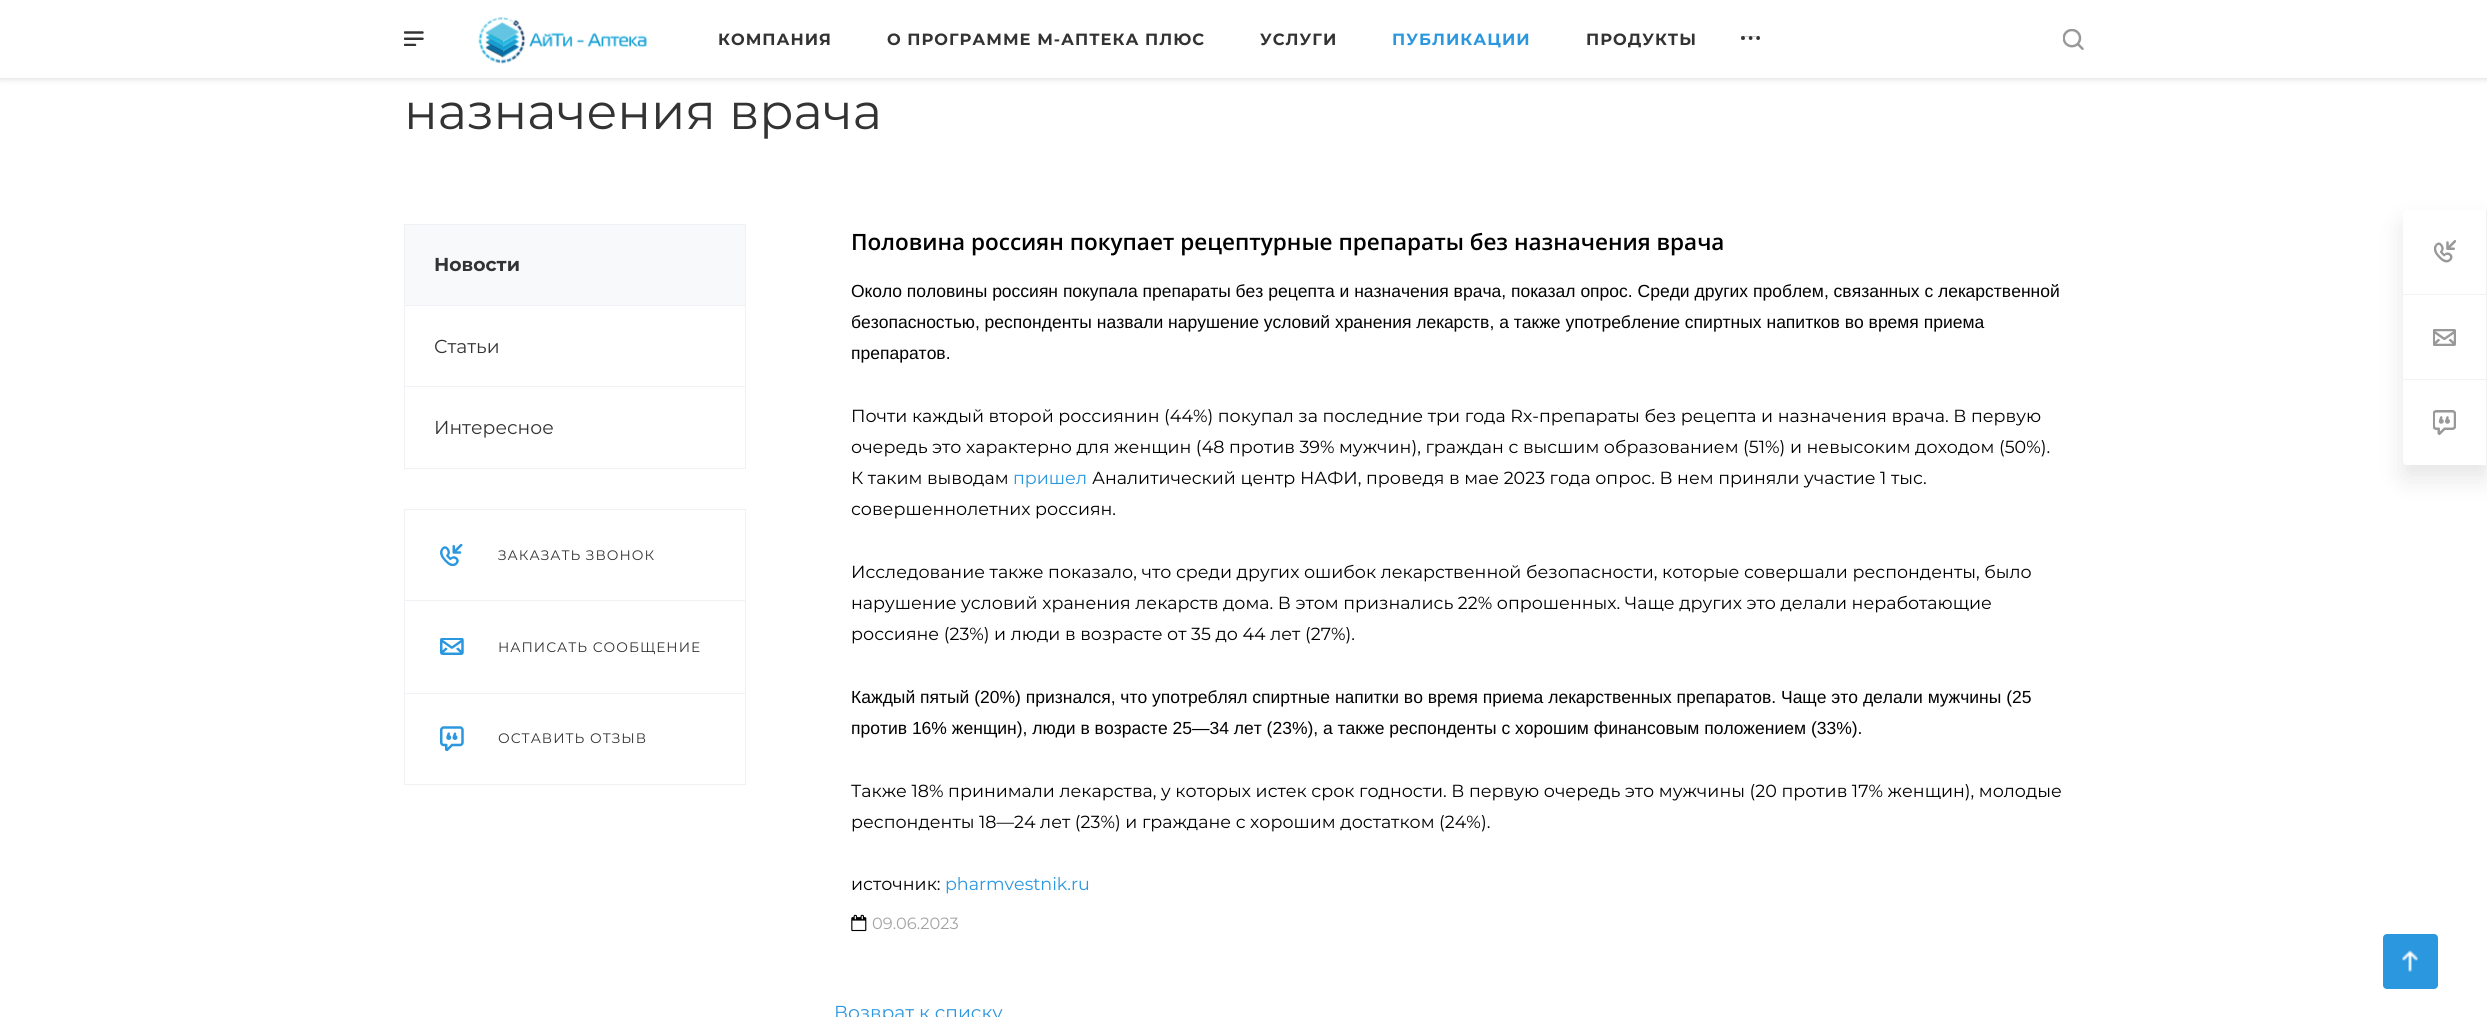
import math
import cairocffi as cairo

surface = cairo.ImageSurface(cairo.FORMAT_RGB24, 2487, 1017)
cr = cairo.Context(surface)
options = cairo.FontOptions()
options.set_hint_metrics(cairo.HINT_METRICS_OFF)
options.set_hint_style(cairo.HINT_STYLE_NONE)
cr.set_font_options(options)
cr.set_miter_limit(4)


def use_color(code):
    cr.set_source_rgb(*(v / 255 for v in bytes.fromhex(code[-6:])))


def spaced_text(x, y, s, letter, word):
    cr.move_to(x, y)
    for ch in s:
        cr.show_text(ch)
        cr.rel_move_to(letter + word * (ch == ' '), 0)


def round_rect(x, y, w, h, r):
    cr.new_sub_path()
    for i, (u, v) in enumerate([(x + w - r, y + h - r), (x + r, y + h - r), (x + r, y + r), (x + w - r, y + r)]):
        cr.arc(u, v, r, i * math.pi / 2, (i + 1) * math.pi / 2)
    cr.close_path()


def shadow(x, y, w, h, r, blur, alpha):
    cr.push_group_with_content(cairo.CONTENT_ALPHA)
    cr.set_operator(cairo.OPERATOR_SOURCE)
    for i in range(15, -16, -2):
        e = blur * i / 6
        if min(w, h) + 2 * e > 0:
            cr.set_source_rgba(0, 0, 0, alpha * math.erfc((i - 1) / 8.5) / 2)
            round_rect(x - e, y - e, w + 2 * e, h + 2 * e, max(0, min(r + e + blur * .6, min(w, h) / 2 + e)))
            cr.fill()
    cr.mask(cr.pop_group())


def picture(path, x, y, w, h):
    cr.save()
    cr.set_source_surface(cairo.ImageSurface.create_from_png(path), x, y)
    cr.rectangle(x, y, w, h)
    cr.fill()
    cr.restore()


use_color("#ffffff")
cr.paint()
use_color("#000000")
shadow(0, 1, 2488, 78, 0, 3, 0.14)
use_color("#ffffff")
cr.rectangle(0, 0, 2487, 78)
cr.fill()
picture("img1.png", 404, 31, 20, 15)
picture("img2.png", 478, 17, 169, 47)
cr.select_font_face("Montserrat", cairo.FONT_SLANT_NORMAL, cairo.FONT_WEIGHT_BOLD)
cr.set_font_size(16.25)
use_color("#333333")
spaced_text(718, 45, "КОМПАНИЯ", 1, 0)
spaced_text(887, 45, "О ПРОГРАММЕ М-АПТЕКА ПЛЮС", 1, 0)
spaced_text(1260, 45, "УСЛУГИ", 1, 0)
use_color("#2b97df")
spaced_text(1392, 45, "ПУБЛИКАЦИИ", 1, 0)
use_color("#333333")
spaced_text(1586, 45, "ПРОДУКТЫ", 1, 0)
cr.rectangle(1741, 36, 19, 4)
cr.fill()
picture("img3.png", 1741, 36, 19, 4)
picture("img4.png", 2063, 29, 21, 21)
cr.select_font_face("Montserrat")
cr.set_font_size(50)
cr.move_to(404, 129)
cr.show_text("назначения врача")
cr.rectangle(404.5, 224.5, 341, 244)
use_color("#eff1f5")
cr.set_line_width(1)
cr.stroke()
use_color("#f8f9fb")
cr.rectangle(405, 225, 340, 80)
cr.fill()
cr.select_font_face("Montserrat", cairo.FONT_SLANT_NORMAL, cairo.FONT_WEIGHT_BOLD)
cr.set_font_size(18.75)
use_color("#333333")
cr.move_to(434, 271)
cr.show_text("Новости")
use_color("#eff1f5")
cr.rectangle(405, 305, 340, 1)
cr.fill()
cr.select_font_face("Montserrat")
use_color("#333333")
cr.move_to(434, 353)
cr.show_text("Статьи")
use_color("#eff1f5")
cr.rectangle(405, 386, 340, 1)
cr.fill()
use_color("#333333")
cr.move_to(434, 434)
cr.show_text("Интересное")
cr.rectangle(404.5, 509.5, 341, 91)
use_color("#eff1f5")
cr.stroke()
picture("img5.png", 440, 544, 23, 22)
cr.set_font_size(13.75)
use_color("#333333")
spaced_text(498, 560, "ЗАКАЗАТЬ ЗВОНОК", 1, 0)
cr.rectangle(404.5, 600.5, 341, 93)
use_color("#eff1f5")
cr.stroke()
picture("img6.png", 440, 638, 24, 17)
use_color("#333333")
spaced_text(498, 652, "НАПИСАТЬ СООБЩЕНИЕ", 1, 0)
cr.rectangle(404.5, 693.5, 341, 91)
use_color("#eff1f5")
cr.stroke()
picture("img7.png", 440, 726, 24, 25)
use_color("#333333")
spaced_text(498, 743, "ОСТАВИТЬ ОТЗЫВ", 1, 0)
cr.select_font_face("Open Sans SemiBold")
cr.set_font_size(22.5)
use_color("#000000")
cr.move_to(851, 250)
cr.show_text("Половина россиян покупает рецептурные препараты без назначения врача")
cr.select_font_face("Liberation Sans")
cr.set_font_size(17.5)
cr.move_to(851, 297)
cr.show_text("Около половины россиян покупала препараты без рецепта и назначения врача, показал опрос. Среди других проблем, связанных с лекарственной")
cr.move_to(851, 328)
cr.show_text("безопасностью, респонденты назвали нарушение условий хранения лекарств, а также употребление спиртных напитков во время приема")
cr.move_to(851, 359)
cr.show_text("препаратов.")
cr.select_font_face("Montserrat")
cr.move_to(851, 422)
cr.show_text("Почти каждый второй россиянин (44%) покупал за последние три года Rx-препараты без рецепта и назначения врача. В первую")
cr.move_to(851, 453)
cr.show_text("очередь это характерно для женщин (48 против 39% мужчин), граждан с высшим образованием (51%) и невысоким доходом (50%).")
cr.move_to(851, 484)
cr.show_text("К таким выводам")
use_color("#2b97df")
cr.move_to(1013, 484)
cr.show_text("пришел")
use_color("#000000")
cr.move_to(1092, 484)
cr.show_text("Аналитический центр НАФИ, проведя в мае 2023 года опрос. В нем приняли участие 1 тыс.")
cr.move_to(851, 515)
cr.show_text("совершеннолетних россиян.")
cr.move_to(851, 578)
cr.show_text("Исследование также показало, что среди других ошибок лекарственной безопасности, которые совершали респонденты, было")
cr.move_to(851, 609)
cr.show_text("нарушение условий хранения лекарств дома. В этом признались 22% опрошенных. Чаще других это делали неработающие")
cr.move_to(851, 640)
cr.show_text("россияне (23%) и люди в возрасте от 35 до 44 лет (27%).")
cr.select_font_face("Liberation Sans")
cr.move_to(851, 703)
cr.show_text("Каждый пятый (20%) признался, что употреблял спиртные напитки во время приема лекарственных препаратов. Чаще это делали мужчины (25")
cr.move_to(851, 734)
cr.show_text("против 16% женщин), люди в возрасте 25—34 лет (23%), а также респонденты с хорошим финансовым положением (33%).")
cr.select_font_face("Montserrat")
cr.move_to(851, 797)
cr.show_text("Также 18% принимали лекарства, у которых истек срок годности. В первую очередь это мужчины (20 против 17% женщин), молодые")
cr.move_to(851, 828)
cr.show_text("респонденты 18—24 лет (23%) и граждане с хорошим достатком (24%).")
cr.move_to(851, 890)
cr.show_text("источник:")
use_color("#2b97df")
cr.move_to(945, 890)
cr.show_text("pharmvestnik.ru")
picture("img8.png", 851, 914, 16, 18)
cr.set_font_size(16.25)
use_color("#a4a4a4")
cr.move_to(872, 929)
cr.show_text("09.06.2023")
cr.set_font_size(18.75)
use_color("#2b97df")
cr.move_to(834, 1019)
cr.show_text("Возврат к списку")
cr.save()
cr.set_fill_rule(cairo.FILL_RULE_EVEN_ODD)
cr.new_path()
cr.move_to(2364, 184)
cr.line_to(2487, 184)
cr.line_to(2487, 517)
cr.line_to(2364, 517)
cr.close_path()
cr.move_to(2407, 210)
cr.line_to(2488, 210)
cr.line_to(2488, 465)
cr.line_to(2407, 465)
cr.curve_to(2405, 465, 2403, 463, 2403, 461)
cr.line_to(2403, 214)
cr.curve_to(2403, 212, 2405, 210, 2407, 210)
cr.close_path()
cr.clip()
use_color("#000000")
shadow(2403, 223, 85, 255, 4, 12.5, 0.1)
cr.restore()
use_color("#eff1f5")
cr.rectangle(2486, 210, 1, 255)
cr.fill()
use_color("#f2f2f2")
cr.rectangle(2403, 294, 84, 1)
cr.fill()
picture("img9.png", 2434, 240, 22, 23)
cr.rectangle(2403, 379, 84, 1)
cr.fill()
picture("img10.png", 2433, 329, 23, 17)
picture("img11.png", 2433, 410, 23, 25)
use_color("#2b97df")
round_rect(2383, 934, 55, 55, 4)
cr.fill()
picture("img12.png", 2402, 950, 16, 22)
surface.write_to_png("result.png")
